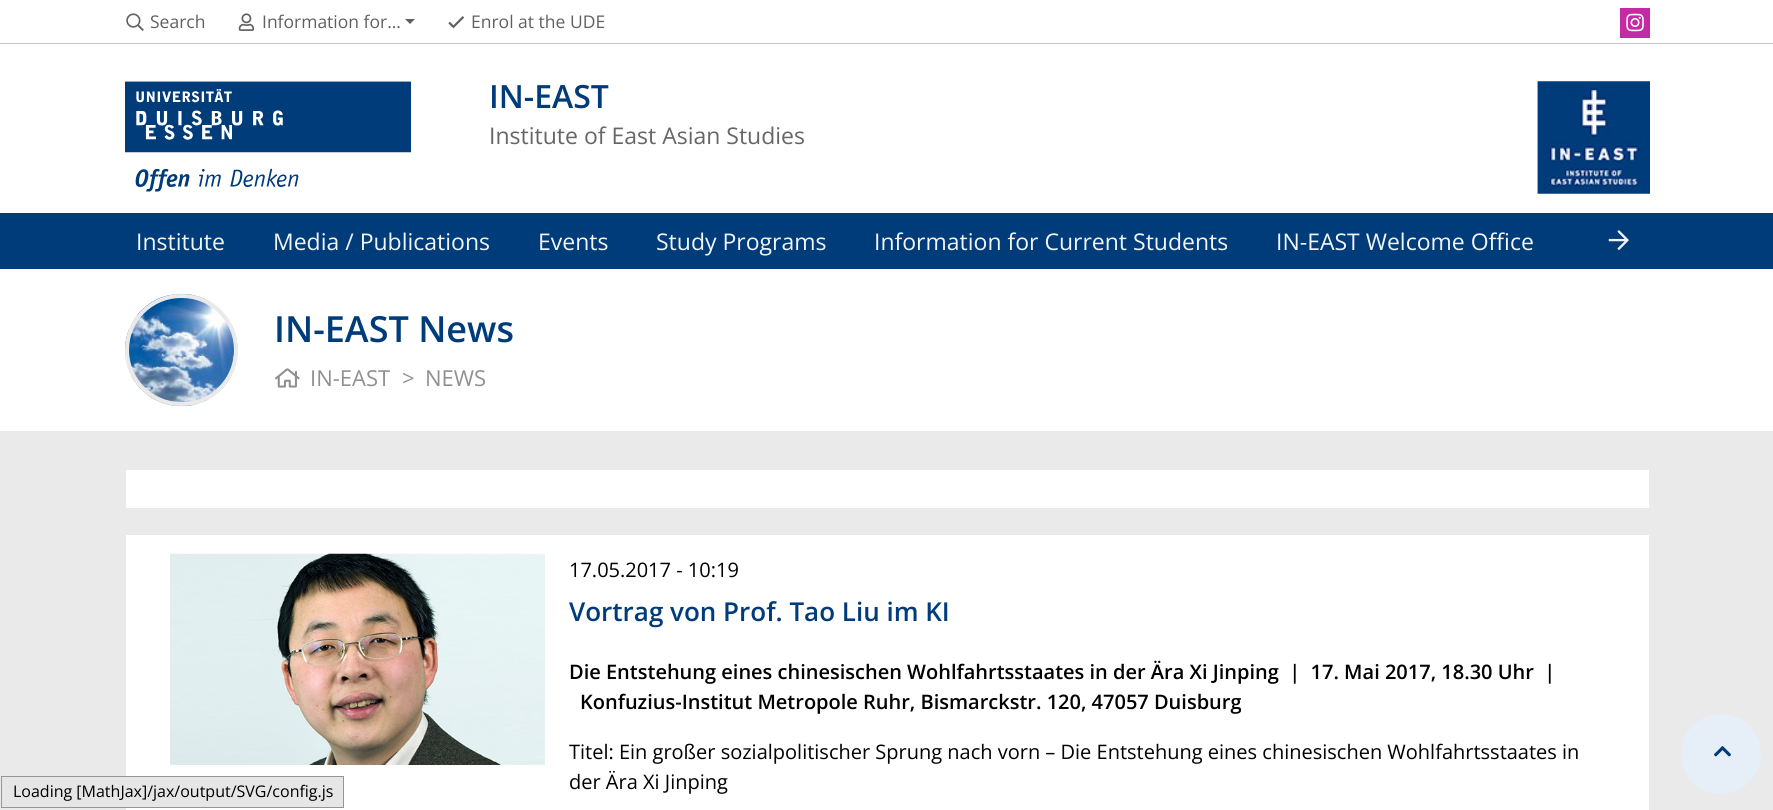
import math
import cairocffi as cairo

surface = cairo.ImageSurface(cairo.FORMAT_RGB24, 1773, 810)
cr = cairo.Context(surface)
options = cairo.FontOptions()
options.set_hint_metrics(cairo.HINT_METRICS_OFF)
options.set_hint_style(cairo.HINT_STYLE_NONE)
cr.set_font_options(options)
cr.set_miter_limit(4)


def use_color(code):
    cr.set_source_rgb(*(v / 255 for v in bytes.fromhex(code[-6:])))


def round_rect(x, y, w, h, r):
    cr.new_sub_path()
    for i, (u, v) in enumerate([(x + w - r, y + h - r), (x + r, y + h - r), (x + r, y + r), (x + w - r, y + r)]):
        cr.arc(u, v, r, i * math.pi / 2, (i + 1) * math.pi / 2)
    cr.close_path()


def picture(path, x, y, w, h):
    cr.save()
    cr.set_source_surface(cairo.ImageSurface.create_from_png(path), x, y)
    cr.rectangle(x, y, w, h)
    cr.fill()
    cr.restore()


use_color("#ffffff")
cr.paint()
use_color("#003b7a")
cr.rectangle(0, 213, 1773, 56)
cr.fill()
use_color("#c6c6c6")
cr.rectangle(0, 43, 1773, 1)
cr.fill()
picture("img1.png", 126, 13, 18, 18)
cr.select_font_face("Open Sans")
cr.set_font_size(17.5)
use_color("#606060")
cr.move_to(150, 28)
cr.show_text("Search")
picture("img2.png", 238, 13, 17, 18)
cr.move_to(262, 28)
cr.show_text("Information for...")
cr.new_path()
cr.move_to(405, 19)
cr.line_to(415, 19)
cr.line_to(410, 24)
cr.close_path()
cr.fill()
picture("img3.png", 448, 16, 16, 13)
cr.move_to(471, 28)
cr.show_text("Enrol at the UDE")
use_color("#c32aa3")
cr.rectangle(1620, 8, 30, 30)
cr.fill()
picture("img4.png", 1626, 13, 18, 19)
cr.set_font_size(23)
use_color("#f2f5f8")
cr.move_to(136, 250)
cr.show_text("Institute")
cr.move_to(273, 250)
cr.show_text("Media / Publications")
cr.move_to(538, 250)
cr.show_text("Events")
cr.move_to(656, 250)
cr.show_text("Study Programs")
cr.move_to(874, 250)
cr.show_text("Information for Current Students")
cr.move_to(1276, 250)
cr.show_text("IN-EAST Welcome Office")
picture("img5.png", 1608, 230, 21, 20)
picture("img6.png", 125, 81, 286, 111)
cr.select_font_face("Open Sans SemiBold")
cr.set_font_size(32)
use_color("#003b7a")
cr.move_to(489, 108)
cr.show_text("IN-EAST")
picture("img7.png", 1537, 81, 113, 113)
cr.select_font_face("Open Sans")
cr.set_font_size(23)
use_color("#666666")
cr.move_to(489, 144)
cr.show_text("Institute of East Asian Studies")
use_color("#eaeaea")
cr.rectangle(0, 431, 1773, 379)
cr.fill()
use_color("#ffffff")
cr.rectangle(126, 535, 1523, 275)
cr.fill()
use_color("#e6e6e6")
cr.rectangle(1.5, 776.5, 342, 31)
cr.fill_preserve()
use_color("#959595")
cr.set_line_width(1)
cr.stroke()
cr.set_font_size(16)
use_color("#000000")
cr.move_to(13, 797)
cr.show_text("Loading [MathJax]/jax/output/SVG/config.js")
picture("img8.png", 125, 293, 113, 114)
round_rect(127, 296, 109, 108, 54)
use_color("#eaeaea")
cr.set_line_width(4)
cr.stroke()
cr.select_font_face("Open Sans SemiBold")
cr.set_font_size(36)
use_color("#003b7a")
cr.move_to(274, 342)
cr.show_text("IN-EAST News")
picture("img9.png", 275, 368, 25, 20)
cr.select_font_face("Open Sans")
cr.set_font_size(22)
use_color("#909090")
cr.move_to(310, 386)
cr.show_text("IN-EAST")
cr.move_to(402, 386)
cr.show_text(">")
cr.move_to(425, 386)
cr.show_text("NEWS")
use_color("#ffffff")
cr.rectangle(126, 470, 1523, 38)
cr.fill()
picture("img10.png", 170, 553, 375, 212)
cr.set_font_size(20)
use_color("#000000")
cr.move_to(569, 577)
cr.show_text("17.05.2017 - 10:19")
cr.select_font_face("Open Sans SemiBold")
cr.set_font_size(26)
use_color("#003b7a")
cr.move_to(569, 621)
cr.show_text("Vortrag von Prof. Tao Liu im KI")
cr.set_font_size(20)
use_color("#000000")
cr.move_to(569, 679)
cr.show_text("Die Entstehung eines chinesischen Wohlfahrtsstaates in der Ära Xi Jinping  |  17. Mai 2017, 18.30 Uhr  |")
cr.move_to(580, 709)
cr.show_text("Konfuzius-Institut Metropole Ruhr, Bismarckstr. 120, 47057 Duisburg")
cr.select_font_face("Open Sans")
cr.move_to(569, 759)
cr.show_text("Titel: Ein großer sozialpolitischer Sprung nach vorn – Die Entstehung eines chinesischen Wohlfahrtsstaates in")
cr.move_to(569, 789)
cr.show_text("der Ära Xi Jinping")
use_color("#e6eef7")
cr.new_path()
cr.arc(1721, 754, 40, 0, 2 * math.pi)
cr.fill()
picture("img11.png", 1714, 746, 17, 11)
surface.write_to_png("result.png")
